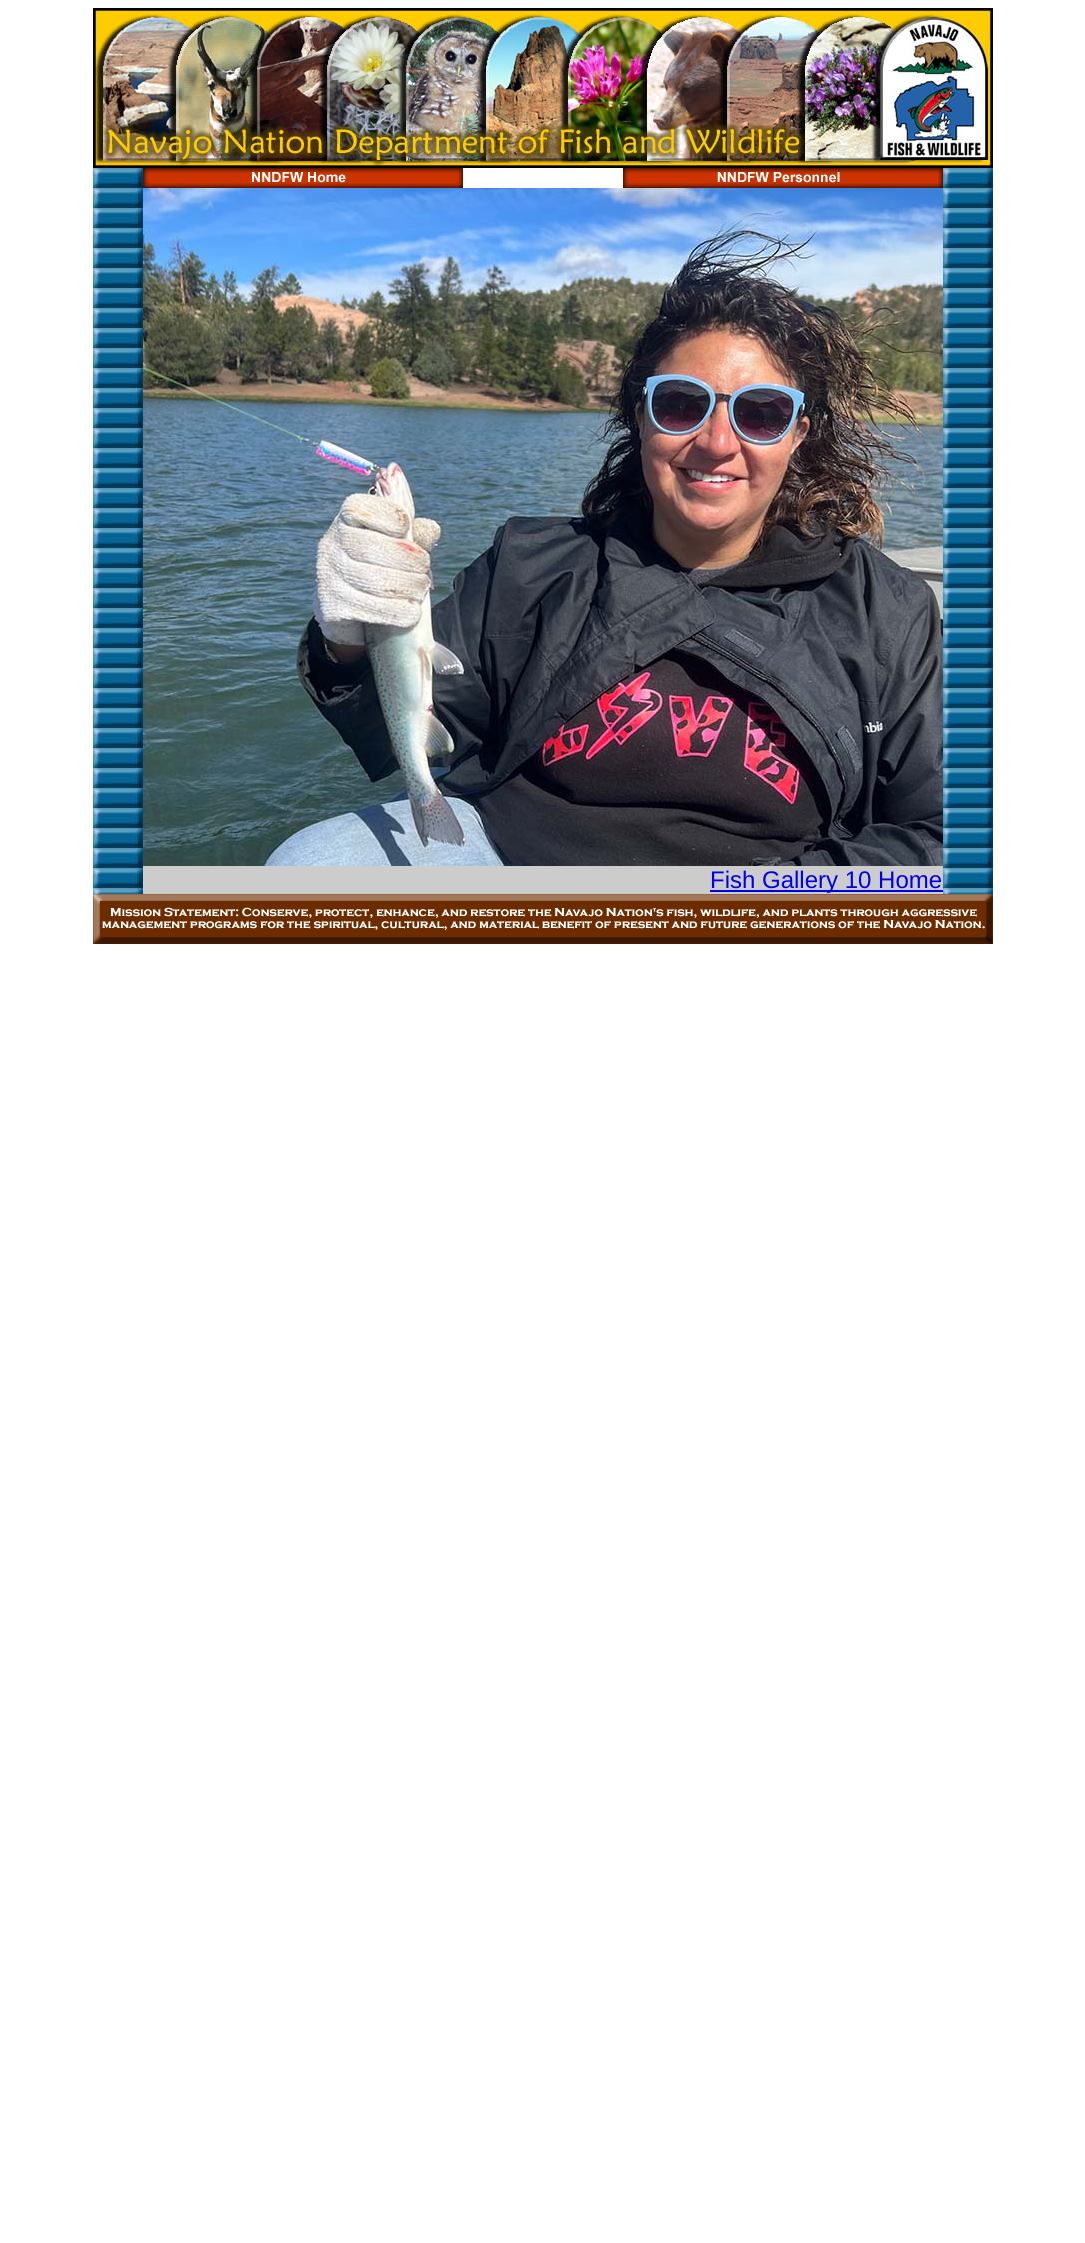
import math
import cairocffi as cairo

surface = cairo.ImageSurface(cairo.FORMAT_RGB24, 1085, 2243)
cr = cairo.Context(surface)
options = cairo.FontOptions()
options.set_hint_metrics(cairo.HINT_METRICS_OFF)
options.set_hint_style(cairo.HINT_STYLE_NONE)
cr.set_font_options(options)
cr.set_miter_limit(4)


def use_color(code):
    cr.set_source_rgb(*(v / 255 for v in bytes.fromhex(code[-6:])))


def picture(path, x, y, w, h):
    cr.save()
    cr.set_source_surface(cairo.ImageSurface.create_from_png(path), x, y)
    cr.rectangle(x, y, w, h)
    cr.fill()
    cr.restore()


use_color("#ffffff")
cr.paint()
picture("img1.png", 93, 8, 900, 160)
picture("img2.png", 93, 168, 50, 726)
picture("img3.png", 143, 168, 320, 20)
picture("img4.png", 623, 168, 320, 20)
picture("img2.png", 943, 168, 50, 726)
picture("img5.png", 143, 188, 800, 678)
use_color("#cccccc")
cr.rectangle(143, 866, 800, 28)
cr.fill()
use_color("#0000ee")
cr.rectangle(710, 890, 233, 2)
cr.fill()
cr.select_font_face("Liberation Sans")
cr.set_font_size(24)
cr.move_to(710, 888)
cr.show_text("Fish Gallery 10 Home")
picture("img6.png", 93, 894, 900, 50)
surface.write_to_png("result.png")
